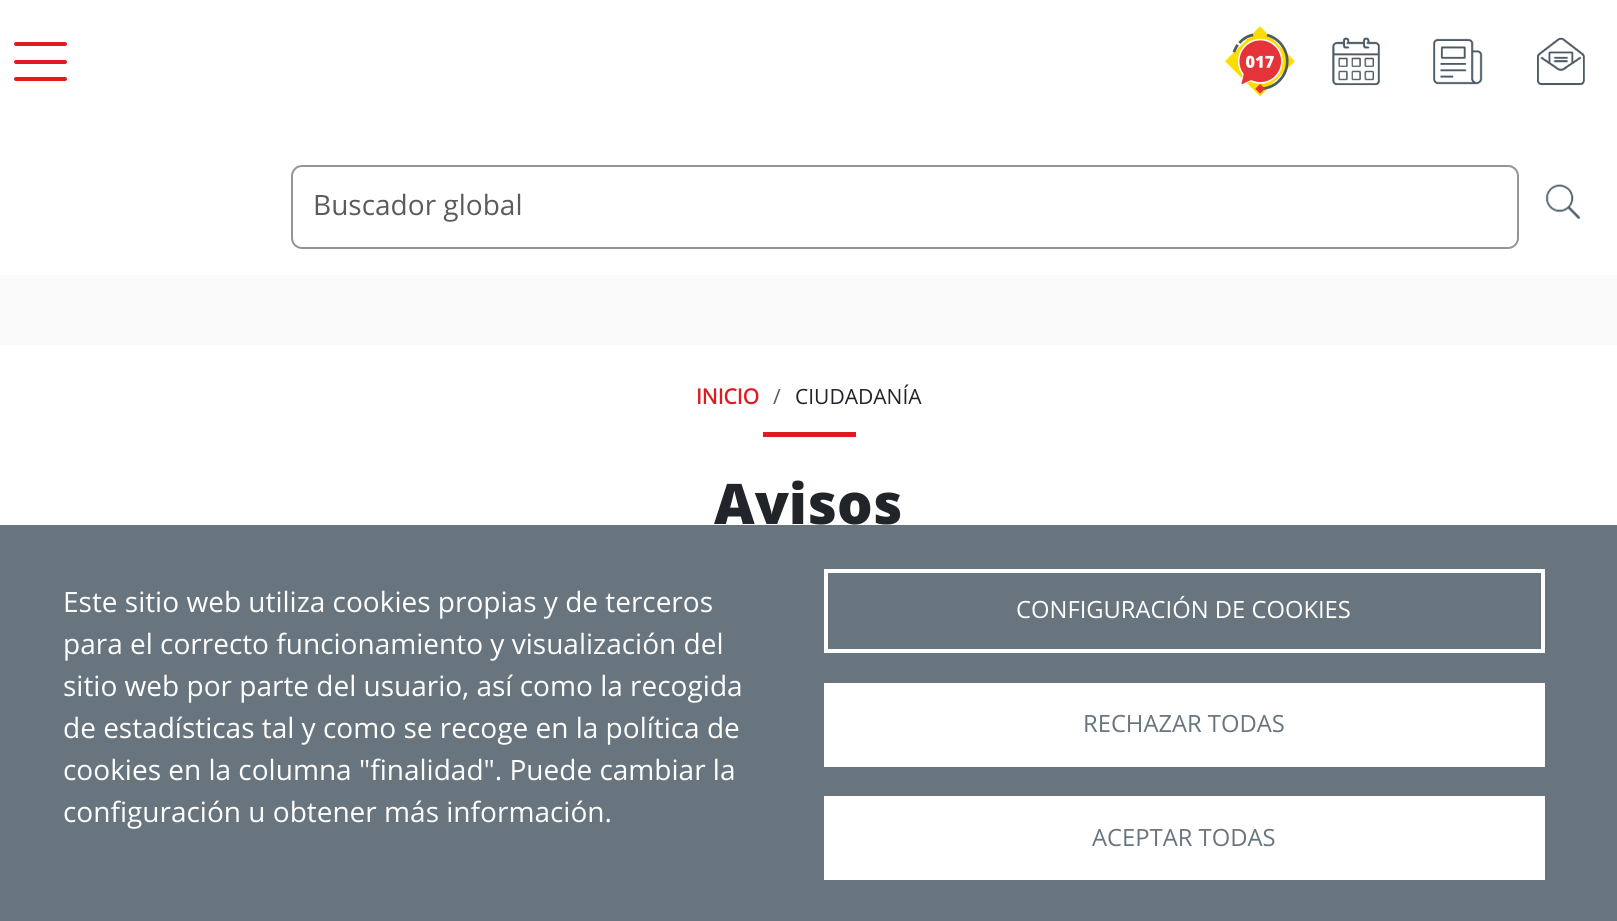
import math
import cairocffi as cairo

surface = cairo.ImageSurface(cairo.FORMAT_RGB24, 1617, 921)
cr = cairo.Context(surface)
options = cairo.FontOptions()
options.set_hint_metrics(cairo.HINT_METRICS_OFF)
options.set_hint_style(cairo.HINT_STYLE_NONE)
cr.set_font_options(options)
cr.set_miter_limit(4)


def use_color(code):
    cr.set_source_rgb(*(v / 255 for v in bytes.fromhex(code[-6:])))


def round_rect(x, y, w, h, r):
    cr.new_sub_path()
    for i, (u, v) in enumerate([(x + w - r, y + h - r), (x + r, y + h - r), (x + r, y + r), (x + w - r, y + r)]):
        cr.arc(u, v, r, i * math.pi / 2, (i + 1) * math.pi / 2)
    cr.close_path()


def picture(path, x, y, w, h):
    cr.save()
    cr.set_source_surface(cairo.ImageSurface.create_from_png(path), x, y)
    cr.rectangle(x, y, w, h)
    cr.fill()
    cr.restore()


use_color("#fafafa")
cr.paint()
use_color("#ffffff")
cr.rectangle(0, 0, 1617, 275)
cr.fill()
use_color("#df1a21")
round_rect(14, 42, 53, 4, 2)
cr.fill()
round_rect(14, 60, 53, 4, 2)
cr.fill()
round_rect(14, 77, 53, 4, 2)
cr.fill()
picture("img1.png", 1225, 26, 70, 70)
picture("img2.png", 1332, 37, 49, 49)
picture("img3.png", 1433, 38, 50, 47)
picture("img4.png", 1537, 37, 48, 49)
round_rect(292, 166, 1226, 82, 10)
use_color("#949494")
cr.stroke()
cr.select_font_face("Open Sans")
cr.set_font_size(28)
use_color("#595c5f")
cr.move_to(313, 215)
cr.show_text("Buscador global")
picture("img5.png", 1545, 184, 36, 36)
use_color("#ffffff")
cr.rectangle(0, 345, 1617, 180)
cr.fill()
cr.select_font_face("Open Sans", cairo.FONT_SLANT_NORMAL, cairo.FONT_WEIGHT_BOLD)
cr.set_font_size(21)
use_color("#df1a21")
cr.move_to(696, 404)
cr.show_text("INICIO")
cr.select_font_face("Open Sans")
use_color("#595c5f")
cr.move_to(773, 404)
cr.show_text("/")
use_color("#212529")
cr.move_to(795, 404)
cr.show_text("CIUDADANÍA")
use_color("#df1a21")
cr.rectangle(763, 432, 93, 5)
cr.fill()
cr.select_font_face("Open Sans ExtraBold")
cr.set_font_size(56)
use_color("#212529")
cr.move_to(714, 524)
cr.show_text("Avisos")
use_color("#68757e")
cr.rectangle(0, 525, 1617, 396)
cr.fill()
cr.select_font_face("Open Sans")
cr.set_font_size(28)
use_color("#ffffff")
cr.move_to(63, 612)
cr.show_text("Este sitio web utiliza cookies propias y de terceros")
cr.move_to(63, 654)
cr.show_text("para el correcto funcionamiento y visualización del")
cr.move_to(63, 696)
cr.show_text("sitio web por parte del usuario, así como la recogida")
cr.move_to(63, 738)
cr.show_text("de estadísticas tal y como se recoge en la política de")
cr.move_to(63, 780)
cr.show_text("cookies en la columna \"finalidad\". Puede cambiar la")
cr.move_to(63, 822)
cr.show_text("configuración u obtener más información.")
cr.rectangle(826, 571, 717, 80)
cr.set_line_width(4)
cr.stroke()
cr.set_font_size(23.75)
cr.move_to(1016, 618)
cr.show_text("CONFIGURACIÓN DE COOKIES")
cr.rectangle(824, 683, 721, 84)
cr.fill()
use_color("#68757e")
cr.move_to(1083, 732)
cr.show_text("RECHAZAR TODAS")
use_color("#ffffff")
cr.rectangle(824, 796, 721, 84)
cr.fill()
use_color("#68757e")
cr.move_to(1092, 846)
cr.show_text("ACEPTAR TODAS")
surface.write_to_png("result.png")
